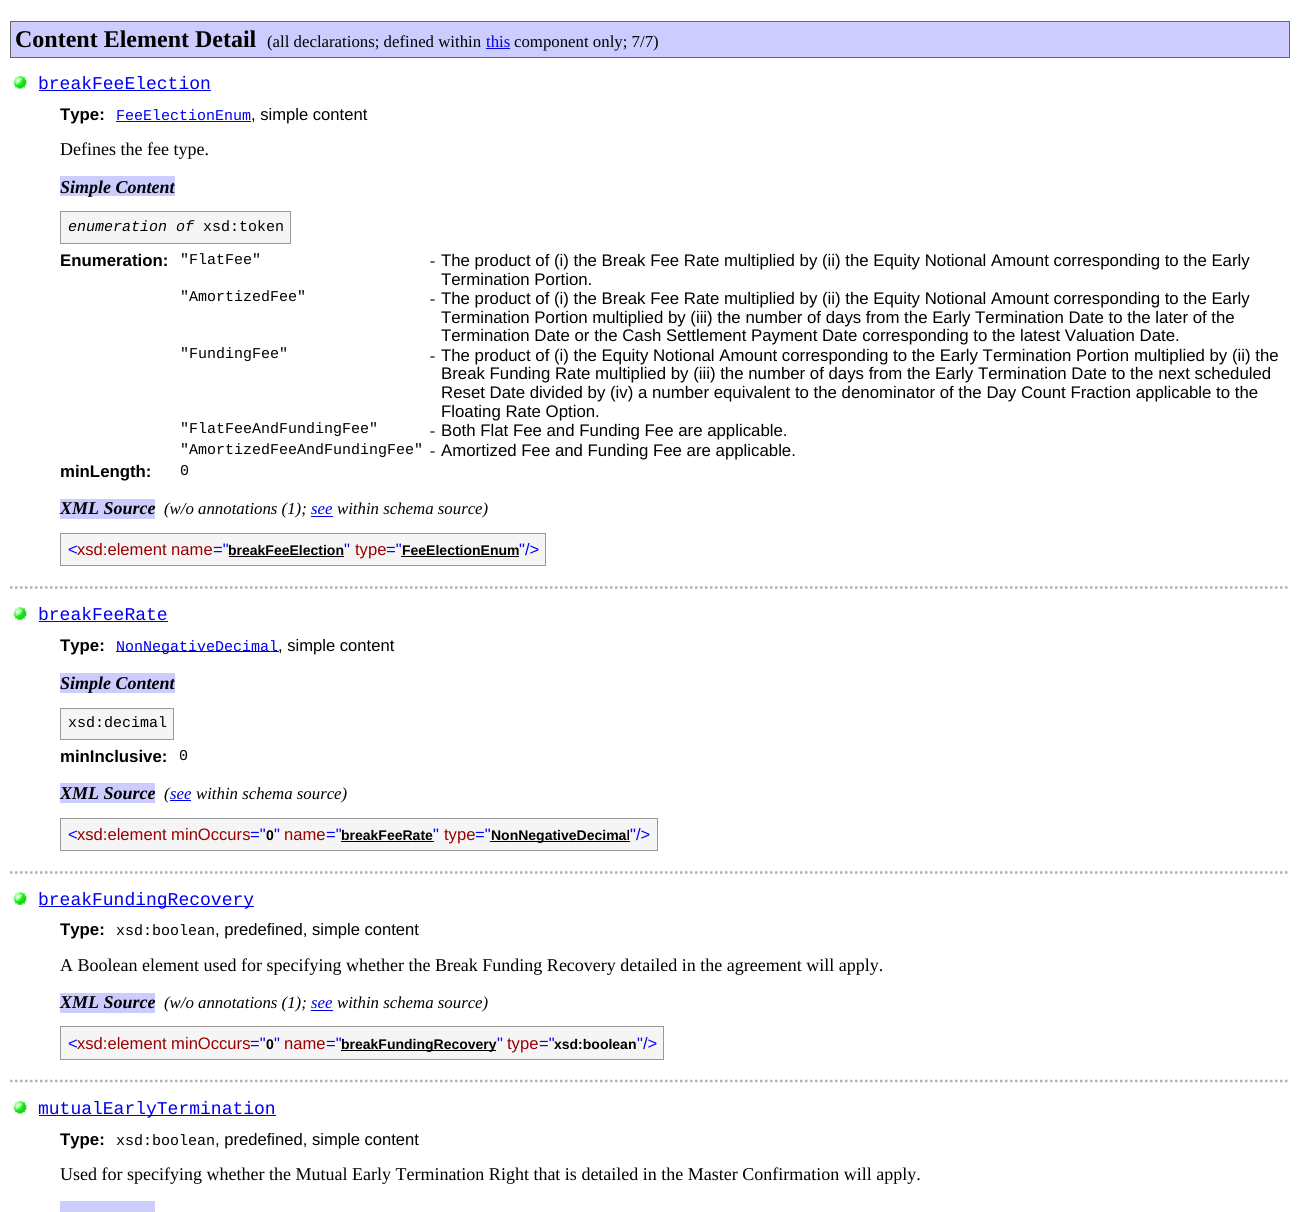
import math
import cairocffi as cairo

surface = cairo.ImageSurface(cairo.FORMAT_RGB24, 1300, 1212)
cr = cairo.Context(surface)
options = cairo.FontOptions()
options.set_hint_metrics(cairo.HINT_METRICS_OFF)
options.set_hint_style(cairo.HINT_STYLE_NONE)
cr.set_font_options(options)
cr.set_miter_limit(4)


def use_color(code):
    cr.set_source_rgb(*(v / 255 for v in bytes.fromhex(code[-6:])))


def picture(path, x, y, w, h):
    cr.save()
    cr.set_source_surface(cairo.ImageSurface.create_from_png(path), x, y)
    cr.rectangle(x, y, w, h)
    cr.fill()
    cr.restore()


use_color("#ffffff")
cr.paint()
use_color("#ccccff")
cr.rectangle(10.5, 21.5, 1279, 36)
cr.fill_preserve()
use_color("#666666")
cr.set_line_width(1)
cr.stroke()
cr.select_font_face("Liberation Serif", cairo.FONT_SLANT_NORMAL, cairo.FONT_WEIGHT_BOLD)
cr.set_font_size(24)
use_color("#000000")
cr.move_to(15, 47)
cr.show_text("Content Element Detail")
cr.select_font_face("Liberation Serif")
cr.set_font_size(16.8)
cr.move_to(267, 47)
cr.show_text("(all declarations; defined within")
use_color("#0000ee")
cr.move_to(486, 47)
cr.show_text("this")
cr.rectangle(486, 48, 24, 1)
cr.fill()
use_color("#000000")
cr.move_to(514, 47)
cr.show_text("component only; 7/7)")
picture("img1.png", 13, 76, 14, 13)
cr.select_font_face("Liberation Mono")
cr.set_font_size(18)
use_color("#0000ee")
cr.move_to(38, 89)
cr.show_text("breakFeeElection")
cr.rectangle(39, 90, 172, 1)
cr.fill()
cr.select_font_face("Liberation Sans", cairo.FONT_SLANT_NORMAL, cairo.FONT_WEIGHT_BOLD)
cr.set_font_size(16.8)
use_color("#000000")
cr.move_to(60, 120)
cr.show_text("Type:")
cr.select_font_face("Liberation Mono")
cr.set_font_size(15)
use_color("#0000ee")
cr.move_to(116, 120)
cr.show_text("FeeElectionEnum")
cr.rectangle(116, 121, 135, 1)
cr.fill()
cr.select_font_face("Liberation Sans")
cr.set_font_size(16.6)
use_color("#000000")
cr.move_to(251, 120)
cr.show_text(", simple content")
cr.select_font_face("Liberation Serif")
cr.set_font_size(18)
cr.move_to(60, 155)
cr.show_text("Defines the fee type.")
use_color("#ccccff")
cr.rectangle(60, 176, 115, 20)
cr.fill()
cr.select_font_face("Liberation Serif", cairo.FONT_SLANT_ITALIC, cairo.FONT_WEIGHT_BOLD)
use_color("#000000")
cr.move_to(60, 193)
cr.show_text("Simple Content")
use_color("#f5f5f5")
cr.rectangle(60.5, 211.5, 230, 32)
cr.fill_preserve()
use_color("#999999")
cr.stroke()
cr.select_font_face("Liberation Mono", cairo.FONT_SLANT_ITALIC)
cr.set_font_size(15)
use_color("#000000")
cr.move_to(68, 231)
cr.show_text("enumeration of")
cr.select_font_face("Liberation Mono")
cr.move_to(203, 231)
cr.show_text("xsd:token")
cr.select_font_face("Liberation Sans", cairo.FONT_SLANT_NORMAL, cairo.FONT_WEIGHT_BOLD)
cr.set_font_size(16.8)
cr.move_to(60, 266)
cr.show_text("Enumeration:")
cr.select_font_face("Liberation Mono")
cr.set_font_size(15)
cr.move_to(180, 264)
cr.show_text("\"FlatFee\"")
cr.move_to(428, 266)
cr.show_text("-")
cr.select_font_face("Liberation Sans")
cr.set_font_size(16.8)
cr.move_to(441, 266)
cr.show_text("The product of (i) the Break Fee Rate multiplied by (ii) the Equity Notional Amount corresponding to the Early")
cr.move_to(441, 285)
cr.show_text("Termination Portion.")
cr.select_font_face("Liberation Mono")
cr.set_font_size(15)
cr.move_to(180, 301)
cr.show_text("\"AmortizedFee\"")
cr.move_to(428, 304)
cr.show_text("-")
cr.select_font_face("Liberation Sans")
cr.set_font_size(16.8)
cr.move_to(441, 304)
cr.show_text("The product of (i) the Break Fee Rate multiplied by (ii) the Equity Notional Amount corresponding to the Early")
cr.move_to(441, 323)
cr.show_text("Termination Portion multiplied by (iii) the number of days from the Early Termination Date to the later of the")
cr.move_to(441, 341)
cr.show_text("Termination Date or the Cash Settlement Payment Date corresponding to the latest Valuation Date.")
cr.select_font_face("Liberation Mono")
cr.set_font_size(15)
cr.move_to(180, 358)
cr.show_text("\"FundingFee\"")
cr.move_to(428, 361)
cr.show_text("-")
cr.select_font_face("Liberation Sans")
cr.set_font_size(16.8)
cr.move_to(441, 361)
cr.show_text("The product of (i) the Equity Notional Amount corresponding to the Early Termination Portion multiplied by (ii) the")
cr.move_to(441, 379)
cr.show_text("Break Funding Rate multiplied by (iii) the number of days from the Early Termination Date to the next scheduled")
cr.move_to(441, 398)
cr.show_text("Reset Date divided by (iv) a number equivalent to the denominator of the Day Count Fraction applicable to the")
cr.move_to(441, 417)
cr.show_text("Floating Rate Option.")
cr.select_font_face("Liberation Mono")
cr.set_font_size(15)
cr.move_to(180, 433)
cr.show_text("\"FlatFeeAndFundingFee\"")
cr.move_to(428, 436)
cr.show_text("-")
cr.select_font_face("Liberation Sans")
cr.set_font_size(16.8)
cr.move_to(441, 436)
cr.show_text("Both Flat Fee and Funding Fee are applicable.")
cr.select_font_face("Liberation Mono")
cr.set_font_size(15)
cr.move_to(180, 454)
cr.show_text("\"AmortizedFeeAndFundingFee\"")
cr.move_to(428, 456)
cr.show_text("-")
cr.select_font_face("Liberation Sans")
cr.set_font_size(16.8)
cr.move_to(441, 456)
cr.show_text("Amortized Fee and Funding Fee are applicable.")
cr.select_font_face("Liberation Sans", cairo.FONT_SLANT_NORMAL, cairo.FONT_WEIGHT_BOLD)
cr.move_to(60, 477)
cr.show_text("minLength:")
cr.select_font_face("Liberation Mono")
cr.set_font_size(15)
cr.move_to(180, 475)
cr.show_text("0")
use_color("#ccccff")
cr.rectangle(60, 499, 95, 20)
cr.fill()
cr.select_font_face("Liberation Serif", cairo.FONT_SLANT_ITALIC, cairo.FONT_WEIGHT_BOLD)
cr.set_font_size(18)
use_color("#000000")
cr.move_to(60, 514)
cr.show_text("XML Source")
cr.select_font_face("Liberation Serif", cairo.FONT_SLANT_ITALIC)
cr.set_font_size(16.8)
cr.move_to(164, 514)
cr.show_text("(w/o annotations (1);")
use_color("#0000ee")
cr.move_to(311, 514)
cr.show_text("see")
cr.rectangle(311, 516, 22, 1)
cr.fill()
use_color("#000000")
cr.move_to(337, 514)
cr.show_text("within schema source)")
use_color("#f5f5f5")
cr.rectangle(60.5, 533.5, 485, 32)
cr.fill_preserve()
use_color("#999999")
cr.stroke()
cr.select_font_face("Liberation Sans")
cr.set_font_size(16.6)
use_color("#0000ff")
cr.move_to(68, 555)
cr.show_text("<")
use_color("#990000")
cr.move_to(77, 555)
cr.show_text("xsd:element name")
use_color("#0000ff")
cr.move_to(213, 555)
cr.show_text("=\"")
cr.select_font_face("Liberation Sans", cairo.FONT_SLANT_NORMAL, cairo.FONT_WEIGHT_BOLD)
cr.set_font_size(14)
use_color("#000000")
cr.move_to(228, 555)
cr.show_text("breakFeeElection")
cr.rectangle(229, 556, 115, 1)
cr.fill()
cr.select_font_face("Liberation Sans")
cr.set_font_size(16.6)
use_color("#0000ff")
cr.move_to(344, 555)
cr.show_text("\"")
use_color("#990000")
cr.move_to(355, 555)
cr.show_text("type")
use_color("#0000ff")
cr.move_to(386, 555)
cr.show_text("=\"")
cr.select_font_face("Liberation Sans", cairo.FONT_SLANT_NORMAL, cairo.FONT_WEIGHT_BOLD)
cr.set_font_size(14)
use_color("#000000")
cr.move_to(402, 555)
cr.show_text("FeeElectionEnum")
cr.rectangle(401, 556, 118, 1)
cr.fill()
cr.select_font_face("Liberation Sans")
cr.set_font_size(16.6)
use_color("#0000ff")
cr.move_to(519, 555)
cr.show_text("\"/>")
cr.new_path()
cr.move_to(10, 587.5)
cr.line_to(1290, 587.5)
use_color("#b2b2b2")
cr.set_line_width(2.5)
cr.set_dash([2.5, 2.5])
cr.stroke()
picture("img2.png", 13, 607, 14, 13)
cr.select_font_face("Liberation Mono")
cr.set_font_size(18)
use_color("#0000ee")
cr.move_to(38, 620)
cr.show_text("breakFeeRate")
cr.rectangle(39, 621, 129, 1)
cr.fill()
cr.select_font_face("Liberation Sans", cairo.FONT_SLANT_NORMAL, cairo.FONT_WEIGHT_BOLD)
cr.set_font_size(16.8)
use_color("#000000")
cr.move_to(60, 651)
cr.show_text("Type:")
use_color("#0000ee")
cr.rectangle(116, 651, 163, 1)
cr.fill()
cr.select_font_face("Liberation Mono")
cr.set_font_size(15)
cr.move_to(116, 651)
cr.show_text("NonNegativeDecimal")
cr.select_font_face("Liberation Sans")
cr.set_font_size(16.6)
use_color("#000000")
cr.move_to(278, 651)
cr.show_text(", simple content")
use_color("#ccccff")
cr.rectangle(60, 673, 115, 20)
cr.fill()
cr.select_font_face("Liberation Serif", cairo.FONT_SLANT_ITALIC, cairo.FONT_WEIGHT_BOLD)
cr.set_font_size(18)
use_color("#000000")
cr.move_to(60, 689)
cr.show_text("Simple Content")
use_color("#f5f5f5")
cr.rectangle(60.5, 708.5, 113, 31)
cr.fill_preserve()
use_color("#999999")
cr.set_line_width(1)
cr.set_dash([])
cr.stroke()
cr.select_font_face("Liberation Mono")
cr.set_font_size(15)
use_color("#000000")
cr.move_to(68, 727)
cr.show_text("xsd:decimal")
cr.select_font_face("Liberation Sans", cairo.FONT_SLANT_NORMAL, cairo.FONT_WEIGHT_BOLD)
cr.set_font_size(16.8)
cr.move_to(60, 762)
cr.show_text("minInclusive:")
cr.select_font_face("Liberation Mono")
cr.set_font_size(15)
cr.move_to(179, 760)
cr.show_text("0")
use_color("#ccccff")
cr.rectangle(60, 783, 95, 20)
cr.fill()
cr.select_font_face("Liberation Serif", cairo.FONT_SLANT_ITALIC, cairo.FONT_WEIGHT_BOLD)
cr.set_font_size(18)
use_color("#000000")
cr.move_to(60, 799)
cr.show_text("XML Source")
cr.select_font_face("Liberation Serif", cairo.FONT_SLANT_ITALIC)
cr.set_font_size(16.8)
cr.move_to(164, 799)
cr.show_text("(")
use_color("#0000ee")
cr.move_to(170, 799)
cr.show_text("see")
cr.rectangle(170, 800, 21, 1)
cr.fill()
use_color("#000000")
cr.move_to(196, 799)
cr.show_text("within schema source)")
use_color("#f5f5f5")
cr.rectangle(60.5, 818.5, 597, 32)
cr.fill_preserve()
use_color("#999999")
cr.stroke()
cr.select_font_face("Liberation Sans")
cr.set_font_size(16.6)
use_color("#0000ff")
cr.move_to(68, 840)
cr.show_text("<")
use_color("#990000")
cr.move_to(77, 840)
cr.show_text("xsd:element minOccurs")
use_color("#0000ff")
cr.move_to(250, 840)
cr.show_text("=\"")
cr.select_font_face("Liberation Sans", cairo.FONT_SLANT_NORMAL, cairo.FONT_WEIGHT_BOLD)
cr.set_font_size(14)
use_color("#000000")
cr.move_to(266, 840)
cr.show_text("0")
cr.select_font_face("Liberation Sans")
cr.set_font_size(16.6)
use_color("#0000ff")
cr.move_to(274, 840)
cr.show_text("\"")
use_color("#990000")
cr.move_to(284, 840)
cr.show_text("name")
use_color("#0000ff")
cr.move_to(326, 840)
cr.show_text("=\"")
cr.select_font_face("Liberation Sans", cairo.FONT_SLANT_NORMAL, cairo.FONT_WEIGHT_BOLD)
cr.set_font_size(14)
use_color("#000000")
cr.move_to(341, 840)
cr.show_text("breakFeeRate")
cr.rectangle(341, 841, 93, 1)
cr.fill()
cr.select_font_face("Liberation Sans")
cr.set_font_size(16.6)
use_color("#0000ff")
cr.move_to(433, 840)
cr.show_text("\"")
use_color("#990000")
cr.move_to(444, 840)
cr.show_text("type")
use_color("#0000ff")
cr.move_to(475, 840)
cr.show_text("=\"")
use_color("#000000")
cr.rectangle(490, 841, 140, 1)
cr.fill()
cr.select_font_face("Liberation Sans", cairo.FONT_SLANT_NORMAL, cairo.FONT_WEIGHT_BOLD)
cr.set_font_size(14)
cr.move_to(491, 840)
cr.show_text("NonNegativeDecimal")
cr.select_font_face("Liberation Sans")
cr.set_font_size(16.6)
use_color("#0000ff")
cr.move_to(630, 840)
cr.show_text("\"/>")
cr.new_path()
cr.move_to(10, 872.5)
cr.line_to(1290, 872.5)
use_color("#b2b2b2")
cr.set_line_width(2.5)
cr.set_dash([2.5, 2.5])
cr.stroke()
picture("img2.png", 13, 892, 14, 13)
use_color("#0000ee")
cr.rectangle(39, 906, 215, 1)
cr.fill()
cr.select_font_face("Liberation Mono")
cr.set_font_size(18)
cr.move_to(38, 905)
cr.show_text("breakFundingRecovery")
cr.select_font_face("Liberation Sans", cairo.FONT_SLANT_NORMAL, cairo.FONT_WEIGHT_BOLD)
cr.set_font_size(16.8)
use_color("#000000")
cr.move_to(60, 935)
cr.show_text("Type:")
cr.select_font_face("Liberation Mono")
cr.set_font_size(15)
cr.move_to(116, 935)
cr.show_text("xsd:boolean")
cr.select_font_face("Liberation Sans")
cr.set_font_size(16.6)
cr.move_to(215, 935)
cr.show_text(", predefined, simple content")
cr.select_font_face("Liberation Serif")
cr.set_font_size(18)
cr.move_to(60, 971)
cr.show_text("A Boolean element used for specifying whether the Break Funding Recovery detailed in the agreement will apply.")
use_color("#ccccff")
cr.rectangle(60, 993, 95, 20)
cr.fill()
cr.select_font_face("Liberation Serif", cairo.FONT_SLANT_ITALIC, cairo.FONT_WEIGHT_BOLD)
use_color("#000000")
cr.move_to(60, 1008)
cr.show_text("XML Source")
cr.select_font_face("Liberation Serif", cairo.FONT_SLANT_ITALIC)
cr.set_font_size(16.8)
cr.move_to(164, 1008)
cr.show_text("(w/o annotations (1);")
use_color("#0000ee")
cr.move_to(311, 1008)
cr.show_text("see")
cr.rectangle(311, 1010, 22, 1)
cr.fill()
use_color("#000000")
cr.move_to(337, 1008)
cr.show_text("within schema source)")
use_color("#f5f5f5")
cr.rectangle(60.5, 1026.5, 603, 33)
cr.fill_preserve()
use_color("#999999")
cr.set_line_width(1)
cr.set_dash([])
cr.stroke()
cr.select_font_face("Liberation Sans")
cr.set_font_size(16.6)
use_color("#0000ff")
cr.move_to(68, 1049)
cr.show_text("<")
use_color("#990000")
cr.move_to(77, 1049)
cr.show_text("xsd:element minOccurs")
use_color("#0000ff")
cr.move_to(250, 1049)
cr.show_text("=\"")
cr.select_font_face("Liberation Sans", cairo.FONT_SLANT_NORMAL, cairo.FONT_WEIGHT_BOLD)
cr.set_font_size(14)
use_color("#000000")
cr.move_to(266, 1049)
cr.show_text("0")
cr.select_font_face("Liberation Sans")
cr.set_font_size(16.6)
use_color("#0000ff")
cr.move_to(274, 1049)
cr.show_text("\"")
use_color("#990000")
cr.move_to(284, 1049)
cr.show_text("name")
use_color("#0000ff")
cr.move_to(326, 1049)
cr.show_text("=\"")
use_color("#000000")
cr.rectangle(341, 1050, 155, 1)
cr.fill()
cr.select_font_face("Liberation Sans", cairo.FONT_SLANT_NORMAL, cairo.FONT_WEIGHT_BOLD)
cr.set_font_size(14)
cr.move_to(341, 1049)
cr.show_text("breakFundingRecovery")
cr.select_font_face("Liberation Sans")
cr.set_font_size(16.6)
use_color("#0000ff")
cr.move_to(497, 1049)
cr.show_text("\"")
use_color("#990000")
cr.move_to(507, 1049)
cr.show_text("type")
use_color("#0000ff")
cr.move_to(539, 1049)
cr.show_text("=\"")
cr.select_font_face("Liberation Sans", cairo.FONT_SLANT_NORMAL, cairo.FONT_WEIGHT_BOLD)
cr.set_font_size(14)
use_color("#000000")
cr.move_to(554, 1049)
cr.show_text("xsd:boolean")
cr.select_font_face("Liberation Sans")
cr.set_font_size(16.6)
use_color("#0000ff")
cr.move_to(637, 1049)
cr.show_text("\"/>")
cr.new_path()
cr.move_to(10, 1081)
cr.line_to(1290, 1081)
use_color("#b2b2b2")
cr.set_line_width(2.5)
cr.set_dash([2.5, 2.5])
cr.stroke()
picture("img3.png", 13, 1101, 14, 13)
use_color("#0000ee")
cr.rectangle(39, 1115, 237, 1)
cr.fill()
cr.select_font_face("Liberation Mono")
cr.set_font_size(18)
cr.move_to(38, 1114)
cr.show_text("mutualEarlyTermination")
cr.select_font_face("Liberation Sans", cairo.FONT_SLANT_NORMAL, cairo.FONT_WEIGHT_BOLD)
cr.set_font_size(16.8)
use_color("#000000")
cr.move_to(60, 1145)
cr.show_text("Type:")
cr.select_font_face("Liberation Mono")
cr.set_font_size(15)
cr.move_to(116, 1145)
cr.show_text("xsd:boolean")
cr.select_font_face("Liberation Sans")
cr.set_font_size(16.6)
cr.move_to(215, 1145)
cr.show_text(", predefined, simple content")
cr.select_font_face("Liberation Serif")
cr.set_font_size(18)
cr.move_to(60, 1180)
cr.show_text("Used for specifying whether the Mutual Early Termination Right that is detailed in the Master Confirmation will apply.")
use_color("#ccccff")
cr.rectangle(60, 1201, 95, 11)
cr.fill()
surface.write_to_png("result.png")
